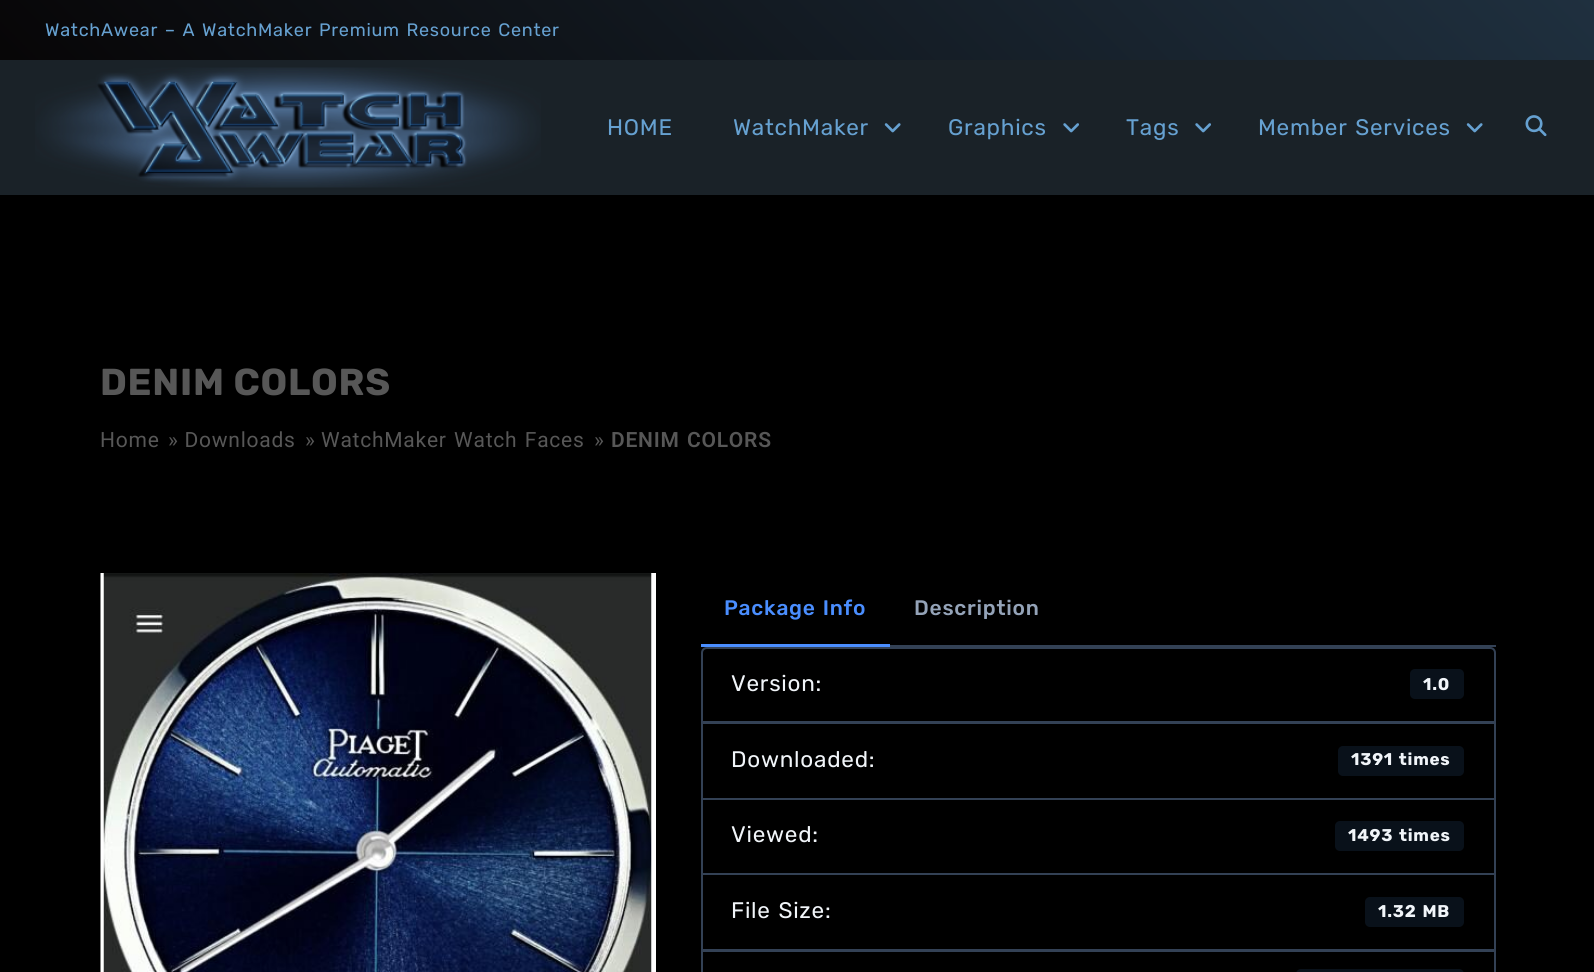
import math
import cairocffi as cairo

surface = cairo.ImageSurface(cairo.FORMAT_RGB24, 1594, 972)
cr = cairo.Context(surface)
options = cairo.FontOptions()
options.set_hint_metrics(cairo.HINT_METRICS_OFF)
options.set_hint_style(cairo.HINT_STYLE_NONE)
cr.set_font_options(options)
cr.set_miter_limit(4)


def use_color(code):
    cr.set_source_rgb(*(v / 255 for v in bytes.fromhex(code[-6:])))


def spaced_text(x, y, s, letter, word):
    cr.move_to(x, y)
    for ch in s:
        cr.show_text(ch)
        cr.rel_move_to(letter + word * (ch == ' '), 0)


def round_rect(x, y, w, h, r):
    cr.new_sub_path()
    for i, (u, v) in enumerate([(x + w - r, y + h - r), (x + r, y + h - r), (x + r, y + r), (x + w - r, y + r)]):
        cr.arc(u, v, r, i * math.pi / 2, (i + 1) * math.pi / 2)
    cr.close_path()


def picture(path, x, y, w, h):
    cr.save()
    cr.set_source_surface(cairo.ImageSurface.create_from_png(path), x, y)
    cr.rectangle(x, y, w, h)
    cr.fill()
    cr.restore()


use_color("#000000")
cr.paint()
gradient = cairo.LinearGradient(350, 545, 1245, -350)
gradient.add_color_stop_rgba(0, 0.02, 0.008, 0.008, 1)
gradient.add_color_stop_rgba(1, 0.122, 0.188, 0.247, 1)
cr.set_source(gradient)
cr.rectangle(0, 0, 1594, 60)
cr.fill()
cr.select_font_face("Rubik")
cr.set_font_size(18)
use_color("#66a1d1")
spaced_text(45, 36, "WatchAwear – A WatchMaker Premium Resource Center", 0.75, 1.5)
use_color("#1a2228")
cr.rectangle(0, 60, 1594, 135)
cr.fill()
picture("img1.png", 35, 67, 506, 121)
cr.set_font_size(22.5)
use_color("#66a1d1")
spaced_text(607, 135, "HOME", 0.75, 0)
spaced_text(733, 135, "WatchMaker", 0.75, 0)
picture("img2.png", 884, 123, 17, 10)
spaced_text(948, 135, "Graphics", 0.75, 0)
picture("img3.png", 1063, 123, 16, 10)
spaced_text(1126, 135, "Tags", 0.75, 0)
picture("img3.png", 1195, 123, 16, 10)
spaced_text(1258, 135, "Member Services", 0.75, 1.5)
picture("img2.png", 1466, 123, 17, 10)
picture("img4.png", 1525, 115, 22, 22)
cr.select_font_face("Rubik", cairo.FONT_SLANT_NORMAL, cairo.FONT_WEIGHT_BOLD)
cr.set_font_size(37.5)
use_color("#575757")
spaced_text(100, 395, "DENIM COLORS", 0.75, 0)
cr.select_font_face("Roboto")
cr.set_font_size(21)
spaced_text(100, 447, "Home", 0.75, 0)
spaced_text(168, 447, "» Downloads", 0.75, 0)
spaced_text(305, 447, "»", 0.75, 0)
spaced_text(321, 447, "WatchMaker Watch Faces", 0.75, 1.5)
spaced_text(594, 447, "»", 0.75, 0)
cr.select_font_face("Roboto SemiBold")
spaced_text(611, 447, "DENIM COLORS", 0.75, 1.5)
picture("img5.png", 100, 573, 552, 399)
use_color("#ffffff")
cr.rectangle(652, 573, 4, 399)
cr.fill()
use_color("#334155")
cr.rectangle(890, 645, 606, 2)
cr.fill()
cr.select_font_face("Rubik Medium")
use_color("#4a8eff")
spaced_text(724, 615, "Package Info", 0.75, 1.5)
cr.rectangle(701, 644, 189, 3)
cr.fill()
use_color("#94a3b8")
spaced_text(914, 615, "Description", 0.75, 0)
cr.new_path()
cr.move_to(707, 648)
cr.line_to(1490, 648)
cr.curve_to(1493, 648, 1495, 650, 1495, 653)
cr.line_to(1495, 722)
cr.line_to(702, 722)
cr.line_to(702, 653)
cr.curve_to(702, 650, 704, 648, 707, 648)
cr.close_path()
use_color("#334155")
cr.stroke()
cr.select_font_face("Rubik")
cr.set_font_size(22.5)
use_color("#f1f5f9")
spaced_text(731, 691, "Version:", 0.75, 0)
use_color("#09111a")
round_rect(1410, 669, 54, 30, 5)
cr.fill()
cr.select_font_face("Rubik", cairo.FONT_SLANT_NORMAL, cairo.FONT_WEIGHT_BOLD)
cr.set_font_size(17)
use_color("#f1f5f9")
spaced_text(1423, 690, "1.0", 0.75, 0)
cr.rectangle(702, 723, 793, 76)
use_color("#334155")
cr.stroke()
cr.select_font_face("Rubik")
cr.set_font_size(22.5)
use_color("#f1f5f9")
spaced_text(731, 767, "Downloaded:", 0.75, 0)
use_color("#09111a")
round_rect(1338, 746, 126, 30, 5)
cr.fill()
cr.select_font_face("Rubik", cairo.FONT_SLANT_NORMAL, cairo.FONT_WEIGHT_BOLD)
cr.set_font_size(17)
use_color("#f1f5f9")
spaced_text(1351, 765, "1391 times", 0.75, 1.5)
cr.rectangle(702, 799, 793, 75)
use_color("#334155")
cr.stroke()
cr.select_font_face("Rubik")
cr.set_font_size(22.5)
use_color("#f1f5f9")
spaced_text(731, 842, "Viewed:", 0.75, 0)
use_color("#09111a")
round_rect(1335, 821, 129, 30, 5)
cr.fill()
cr.select_font_face("Rubik", cairo.FONT_SLANT_NORMAL, cairo.FONT_WEIGHT_BOLD)
cr.set_font_size(17)
use_color("#f1f5f9")
spaced_text(1348, 841, "1493 times", 0.75, 1.5)
cr.rectangle(702, 874, 793, 76)
use_color("#334155")
cr.stroke()
cr.select_font_face("Rubik")
cr.set_font_size(22.5)
use_color("#f1f5f9")
spaced_text(731, 918, "File Size:", 0.75, 1.5)
use_color("#09111a")
round_rect(1365, 897, 99, 30, 5)
cr.fill()
cr.select_font_face("Rubik", cairo.FONT_SLANT_NORMAL, cairo.FONT_WEIGHT_BOLD)
cr.set_font_size(17)
use_color("#f1f5f9")
spaced_text(1378, 917, "1.32 MB", 0.75, 1.5)
cr.rectangle(702, 951, 793, 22)
use_color("#334155")
cr.stroke()
use_color("#09111a")
round_rect(1296, 969, 168, 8, 5)
cr.fill()
surface.write_to_png("result.png")
